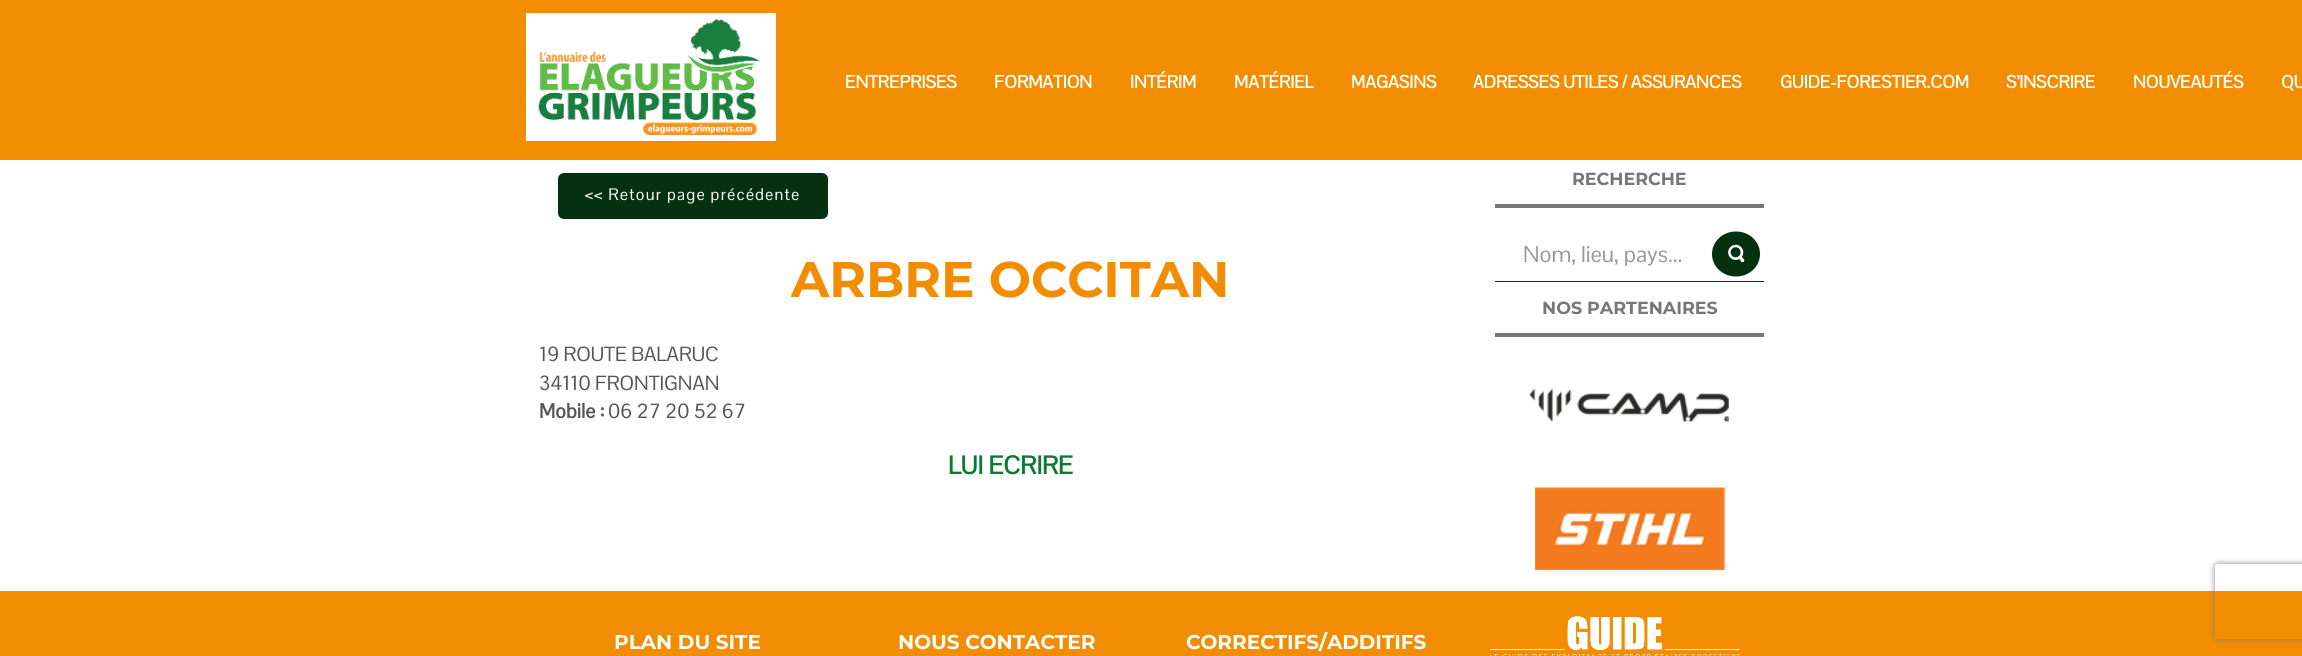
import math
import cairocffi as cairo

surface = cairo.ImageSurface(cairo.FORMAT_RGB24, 2302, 656)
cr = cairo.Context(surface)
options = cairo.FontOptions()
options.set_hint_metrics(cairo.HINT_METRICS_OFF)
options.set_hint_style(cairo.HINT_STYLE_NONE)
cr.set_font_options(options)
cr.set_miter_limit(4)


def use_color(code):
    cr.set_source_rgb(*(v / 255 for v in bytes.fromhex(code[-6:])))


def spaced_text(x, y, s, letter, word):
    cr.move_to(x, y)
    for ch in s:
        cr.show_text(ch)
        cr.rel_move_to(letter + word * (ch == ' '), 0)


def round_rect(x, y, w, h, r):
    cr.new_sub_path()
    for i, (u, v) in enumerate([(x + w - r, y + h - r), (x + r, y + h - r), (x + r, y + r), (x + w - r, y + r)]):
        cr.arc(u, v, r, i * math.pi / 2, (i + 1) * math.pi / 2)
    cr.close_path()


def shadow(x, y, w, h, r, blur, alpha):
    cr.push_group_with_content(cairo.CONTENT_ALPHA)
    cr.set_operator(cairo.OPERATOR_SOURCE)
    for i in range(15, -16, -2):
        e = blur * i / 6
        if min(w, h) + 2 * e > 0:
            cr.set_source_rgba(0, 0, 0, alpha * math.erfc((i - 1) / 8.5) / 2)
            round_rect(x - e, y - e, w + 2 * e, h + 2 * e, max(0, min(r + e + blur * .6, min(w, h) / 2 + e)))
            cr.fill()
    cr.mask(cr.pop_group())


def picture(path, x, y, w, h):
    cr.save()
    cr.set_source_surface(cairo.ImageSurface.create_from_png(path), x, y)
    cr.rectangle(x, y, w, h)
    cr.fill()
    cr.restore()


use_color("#ffffff")
cr.paint()
use_color("#f28d01")
cr.rectangle(0, 0, 2302, 160)
cr.fill()
use_color("#ffffff")
cr.rectangle(526, 13, 250, 128)
cr.fill()
picture("img1.png", 538, 18, 223, 117)
cr.select_font_face("Pontano Sans", cairo.FONT_SLANT_NORMAL, cairo.FONT_WEIGHT_BOLD)
cr.set_font_size(17.5)
cr.move_to(845, 88)
cr.show_text("ENTREPRISES")
cr.move_to(994, 88)
cr.show_text("FORMATION")
cr.move_to(1130, 88)
cr.show_text("INTÉRIM")
cr.move_to(1234, 88)
cr.show_text("MATÉRIEL")
cr.move_to(1351, 88)
cr.show_text("MAGASINS")
cr.move_to(1473, 88)
cr.show_text("ADRESSES UTILES / ASSURANCES")
cr.move_to(1780, 88)
cr.show_text("GUIDE-FORESTIER.COM")
cr.move_to(2006, 88)
cr.show_text("S’INSCRIRE")
cr.move_to(2133, 88)
cr.show_text("NOUVEAUTÉS")
cr.move_to(2281, 88)
cr.show_text("QU")
use_color("#053112")
round_rect(558, 173, 270, 46, 6)
cr.fill()
cr.select_font_face("Pontano Sans")
cr.set_font_size(16.25)
use_color("#ffffff")
spaced_text(585, 200, "<< Retour page précédente", 1.25, 0)
cr.select_font_face("Montserrat", cairo.FONT_SLANT_NORMAL, cairo.FONT_WEIGHT_BOLD)
cr.set_font_size(50)
use_color("#f28d01")
cr.move_to(791, 297)
cr.show_text("ARBRE OCCITAN")
cr.select_font_face("Pontano Sans")
cr.set_font_size(20)
use_color("#555555")
cr.move_to(539, 361)
cr.show_text("19 ROUTE BALARUC")
cr.move_to(539, 390)
cr.show_text("34110 FRONTIGNAN")
cr.select_font_face("Pontano Sans", cairo.FONT_SLANT_NORMAL, cairo.FONT_WEIGHT_BOLD)
cr.move_to(539, 418)
cr.show_text("Mobile :")
cr.select_font_face("Pontano Sans")
cr.move_to(608, 418)
cr.show_text("06 27 20 52 67")
cr.select_font_face("Pontano Sans", cairo.FONT_SLANT_NORMAL, cairo.FONT_WEIGHT_BOLD)
cr.set_font_size(25)
use_color("#0b7b33")
cr.move_to(948, 474)
cr.show_text("LUI ECRIRE")
use_color("#777777")
cr.rectangle(1495, 204, 269, 4)
cr.fill()
cr.select_font_face("Montserrat", cairo.FONT_SLANT_NORMAL, cairo.FONT_WEIGHT_BOLD)
cr.set_font_size(17.5)
cr.move_to(1572, 185)
cr.show_text("RECHERCHE")
use_color("#053112")
cr.rectangle(1495, 281, 269, 1)
cr.fill()
cr.select_font_face("Pontano Sans")
cr.set_font_size(22.5)
use_color("#999999")
cr.move_to(1523, 262)
cr.show_text("Nom, lieu, pays...")
use_color("#053112")
cr.new_path()
cr.move_to(1736, 231.5)
cr.curve_to(1749.5, 231.5, 1760, 241.5, 1760, 254)
cr.curve_to(1760, 266.5, 1749.5, 276.5, 1736, 276.5)
cr.curve_to(1722.5, 276.5, 1712, 266.5, 1712, 254)
cr.curve_to(1712, 241.5, 1722.5, 231.5, 1736, 231.5)
cr.close_path()
cr.fill()
picture("img2.png", 1728, 244, 17, 19)
use_color("#777777")
cr.rectangle(1495, 333, 269, 4)
cr.fill()
cr.select_font_face("Montserrat", cairo.FONT_SLANT_NORMAL, cairo.FONT_WEIGHT_BOLD)
cr.set_font_size(17.5)
cr.move_to(1542, 314)
cr.show_text("NOS PARTENAIRES")
picture("img3.png", 1529, 388, 200, 34)
picture("img4.png", 1534, 487, 192, 84)
use_color("#f28d01")
cr.rectangle(0, 591, 2302, 65)
cr.fill()
cr.set_font_size(20)
use_color("#ffffff")
cr.move_to(614, 649)
cr.show_text("PLAN DU SITE")
cr.move_to(898, 649)
cr.show_text("NOUS CONTACTER")
cr.move_to(1186, 649)
cr.show_text("CORRECTIFS/ADDITIFS")
picture("img5.png", 1490, 616, 250, 40)
cr.save()
cr.set_fill_rule(cairo.FILL_RULE_EVEN_ODD)
cr.new_path()
cr.move_to(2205, 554)
cr.line_to(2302, 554)
cr.line_to(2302, 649)
cr.line_to(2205, 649)
cr.close_path()
cr.move_to(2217.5, 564)
cr.line_to(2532.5, 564)
cr.curve_to(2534, 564, 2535, 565, 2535, 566.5)
cr.line_to(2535, 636.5)
cr.curve_to(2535, 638, 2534, 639, 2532.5, 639)
cr.line_to(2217.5, 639)
cr.curve_to(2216, 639, 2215, 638, 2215, 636.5)
cr.line_to(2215, 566.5)
cr.curve_to(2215, 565, 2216, 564, 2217.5, 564)
cr.close_path()
cr.clip()
use_color("#808080")
shadow(2215, 564, 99, 75, 2.5, 3, 1)
cr.restore()
surface.write_to_png("result.png")
